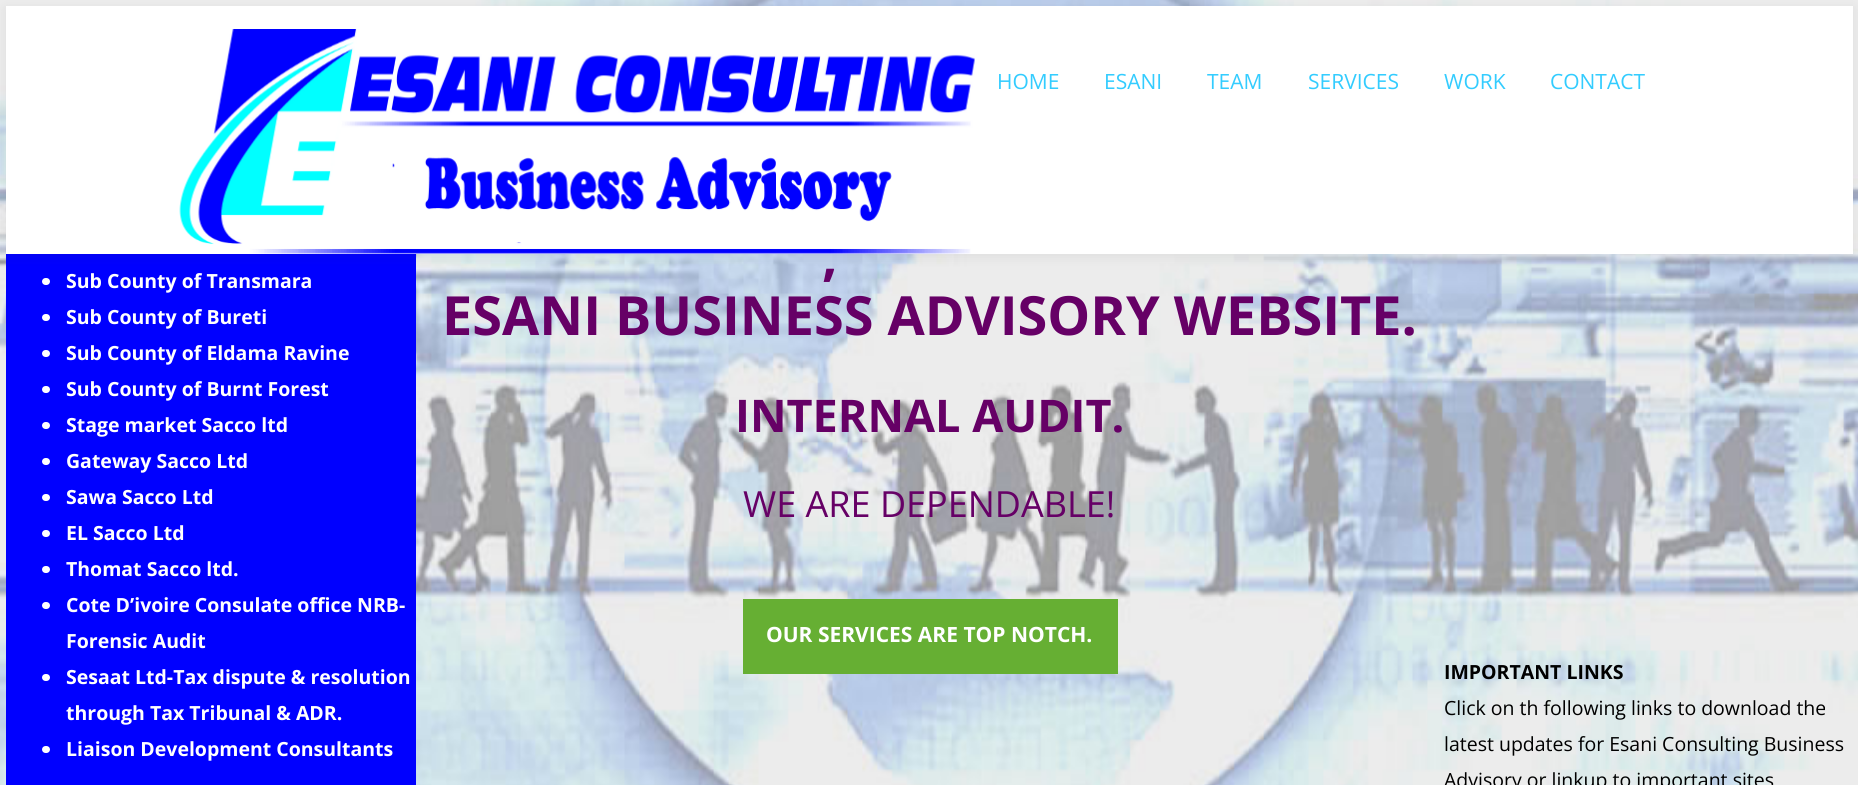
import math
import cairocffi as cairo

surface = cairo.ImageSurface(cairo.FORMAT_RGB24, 1858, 785)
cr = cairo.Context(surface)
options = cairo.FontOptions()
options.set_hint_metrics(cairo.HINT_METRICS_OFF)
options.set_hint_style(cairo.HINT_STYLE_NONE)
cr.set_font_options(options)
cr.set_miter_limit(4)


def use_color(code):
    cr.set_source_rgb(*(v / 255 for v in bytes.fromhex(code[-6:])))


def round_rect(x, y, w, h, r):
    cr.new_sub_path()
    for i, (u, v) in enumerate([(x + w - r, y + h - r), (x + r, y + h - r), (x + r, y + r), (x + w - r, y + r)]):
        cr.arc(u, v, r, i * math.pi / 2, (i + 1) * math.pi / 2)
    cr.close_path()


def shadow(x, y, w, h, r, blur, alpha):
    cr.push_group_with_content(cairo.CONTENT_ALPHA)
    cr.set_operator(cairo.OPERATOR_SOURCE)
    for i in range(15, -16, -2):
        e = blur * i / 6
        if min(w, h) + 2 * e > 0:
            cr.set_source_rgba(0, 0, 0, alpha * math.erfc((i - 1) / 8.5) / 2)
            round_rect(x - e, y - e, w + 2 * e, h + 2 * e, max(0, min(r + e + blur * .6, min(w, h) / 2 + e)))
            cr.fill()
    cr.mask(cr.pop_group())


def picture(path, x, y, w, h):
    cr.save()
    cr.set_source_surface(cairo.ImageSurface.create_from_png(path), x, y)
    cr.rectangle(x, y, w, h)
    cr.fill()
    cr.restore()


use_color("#ffffff")
cr.paint()
picture("img2.png", 0, 0, 1858, 785)
use_color("#0000ff")
cr.rectangle(6, 254, 410, 531)
cr.fill()
use_color("#323232")
shadow(6, 9, 1847, 248, 0, 6, 0.08)
use_color("#ffffff")
cr.rectangle(6, 6, 1847, 248)
cr.fill()
picture("img1.png", 179, 29, 796, 225)
cr.select_font_face("Open Sans")
cr.set_font_size(21)
use_color("#33ccff")
cr.move_to(997, 89)
cr.show_text("HOME")
cr.move_to(1104, 89)
cr.show_text("ESANI")
cr.move_to(1207, 89)
cr.show_text("TEAM")
cr.move_to(1308, 89)
cr.show_text("SERVICES")
cr.move_to(1444, 89)
cr.show_text("WORK")
cr.move_to(1550, 89)
cr.show_text("CONTACT")
use_color("#ffffff")
round_rect(42, 278, 8, 7, 3.5)
cr.fill()
cr.select_font_face("Open Sans", cairo.FONT_SLANT_NORMAL, cairo.FONT_WEIGHT_BOLD)
cr.set_font_size(19.5)
cr.move_to(66, 288)
cr.show_text("Sub County of Transmara")
round_rect(42, 314, 8, 7, 3.5)
cr.fill()
cr.move_to(66, 324)
cr.show_text("Sub County of Bureti")
round_rect(42, 350, 8, 7, 3.5)
cr.fill()
cr.move_to(66, 360)
cr.show_text("Sub County of Eldama Ravine")
round_rect(42, 386, 8, 7, 3.5)
cr.fill()
cr.move_to(66, 396)
cr.show_text("Sub County of Burnt Forest")
round_rect(42, 422, 8, 7, 3.5)
cr.fill()
cr.move_to(66, 432)
cr.show_text("Stage market Sacco ltd")
round_rect(42, 458, 8, 7, 3.5)
cr.fill()
cr.move_to(66, 468)
cr.show_text("Gateway Sacco Ltd")
round_rect(42, 494, 8, 7, 3.5)
cr.fill()
cr.move_to(66, 504)
cr.show_text("Sawa Sacco Ltd")
round_rect(42, 530, 8, 7, 3.5)
cr.fill()
cr.move_to(66, 540)
cr.show_text("EL Sacco Ltd")
round_rect(42, 566, 8, 7, 3.5)
cr.fill()
cr.move_to(66, 576)
cr.show_text("Thomat Sacco ltd.")
round_rect(42, 602, 8, 7, 3.5)
cr.fill()
cr.move_to(66, 612)
cr.show_text("Cote D’ivoire Consulate office NRB-")
cr.move_to(66, 648)
cr.show_text("Forensic Audit")
round_rect(42, 674, 8, 7, 3.5)
cr.fill()
cr.move_to(66, 684)
cr.show_text("Sesaat Ltd-Tax dispute & resolution")
cr.move_to(66, 720)
cr.show_text("through Tax Tribunal & ADR.")
round_rect(42, 746, 8, 7, 3.5)
cr.fill()
cr.move_to(66, 756)
cr.show_text("Liaison Development Consultants")
cr.set_font_size(54)
use_color("#660066")
cr.move_to(822, 275)
cr.show_text(",")
cr.move_to(442, 335)
cr.show_text("ESANI BUSINESS ADVISORY WEBSITE.")
cr.set_font_size(45)
cr.move_to(735, 432)
cr.show_text("INTERNAL AUDIT.")
cr.select_font_face("Open Sans")
cr.set_font_size(36)
cr.move_to(743, 517)
cr.show_text("WE ARE DEPENDABLE!")
use_color("#66af33")
cr.rectangle(743, 599, 375, 75)
cr.fill()
cr.select_font_face("Open Sans", cairo.FONT_SLANT_NORMAL, cairo.FONT_WEIGHT_BOLD)
cr.set_font_size(21)
use_color("#ffffff")
cr.move_to(766, 642)
cr.show_text("OUR SERVICES ARE TOP NOTCH.")
cr.set_font_size(19.5)
use_color("#000000")
cr.move_to(1444, 679)
cr.show_text("IMPORTANT LINKS")
cr.select_font_face("Open Sans")
cr.move_to(1444, 715)
cr.show_text("Click on th following links to download the")
cr.move_to(1444, 751)
cr.show_text("latest updates for Esani Consulting Business")
cr.move_to(1444, 787)
cr.show_text("Advisory or linkup to important sites")
surface.write_to_png("result.png")
